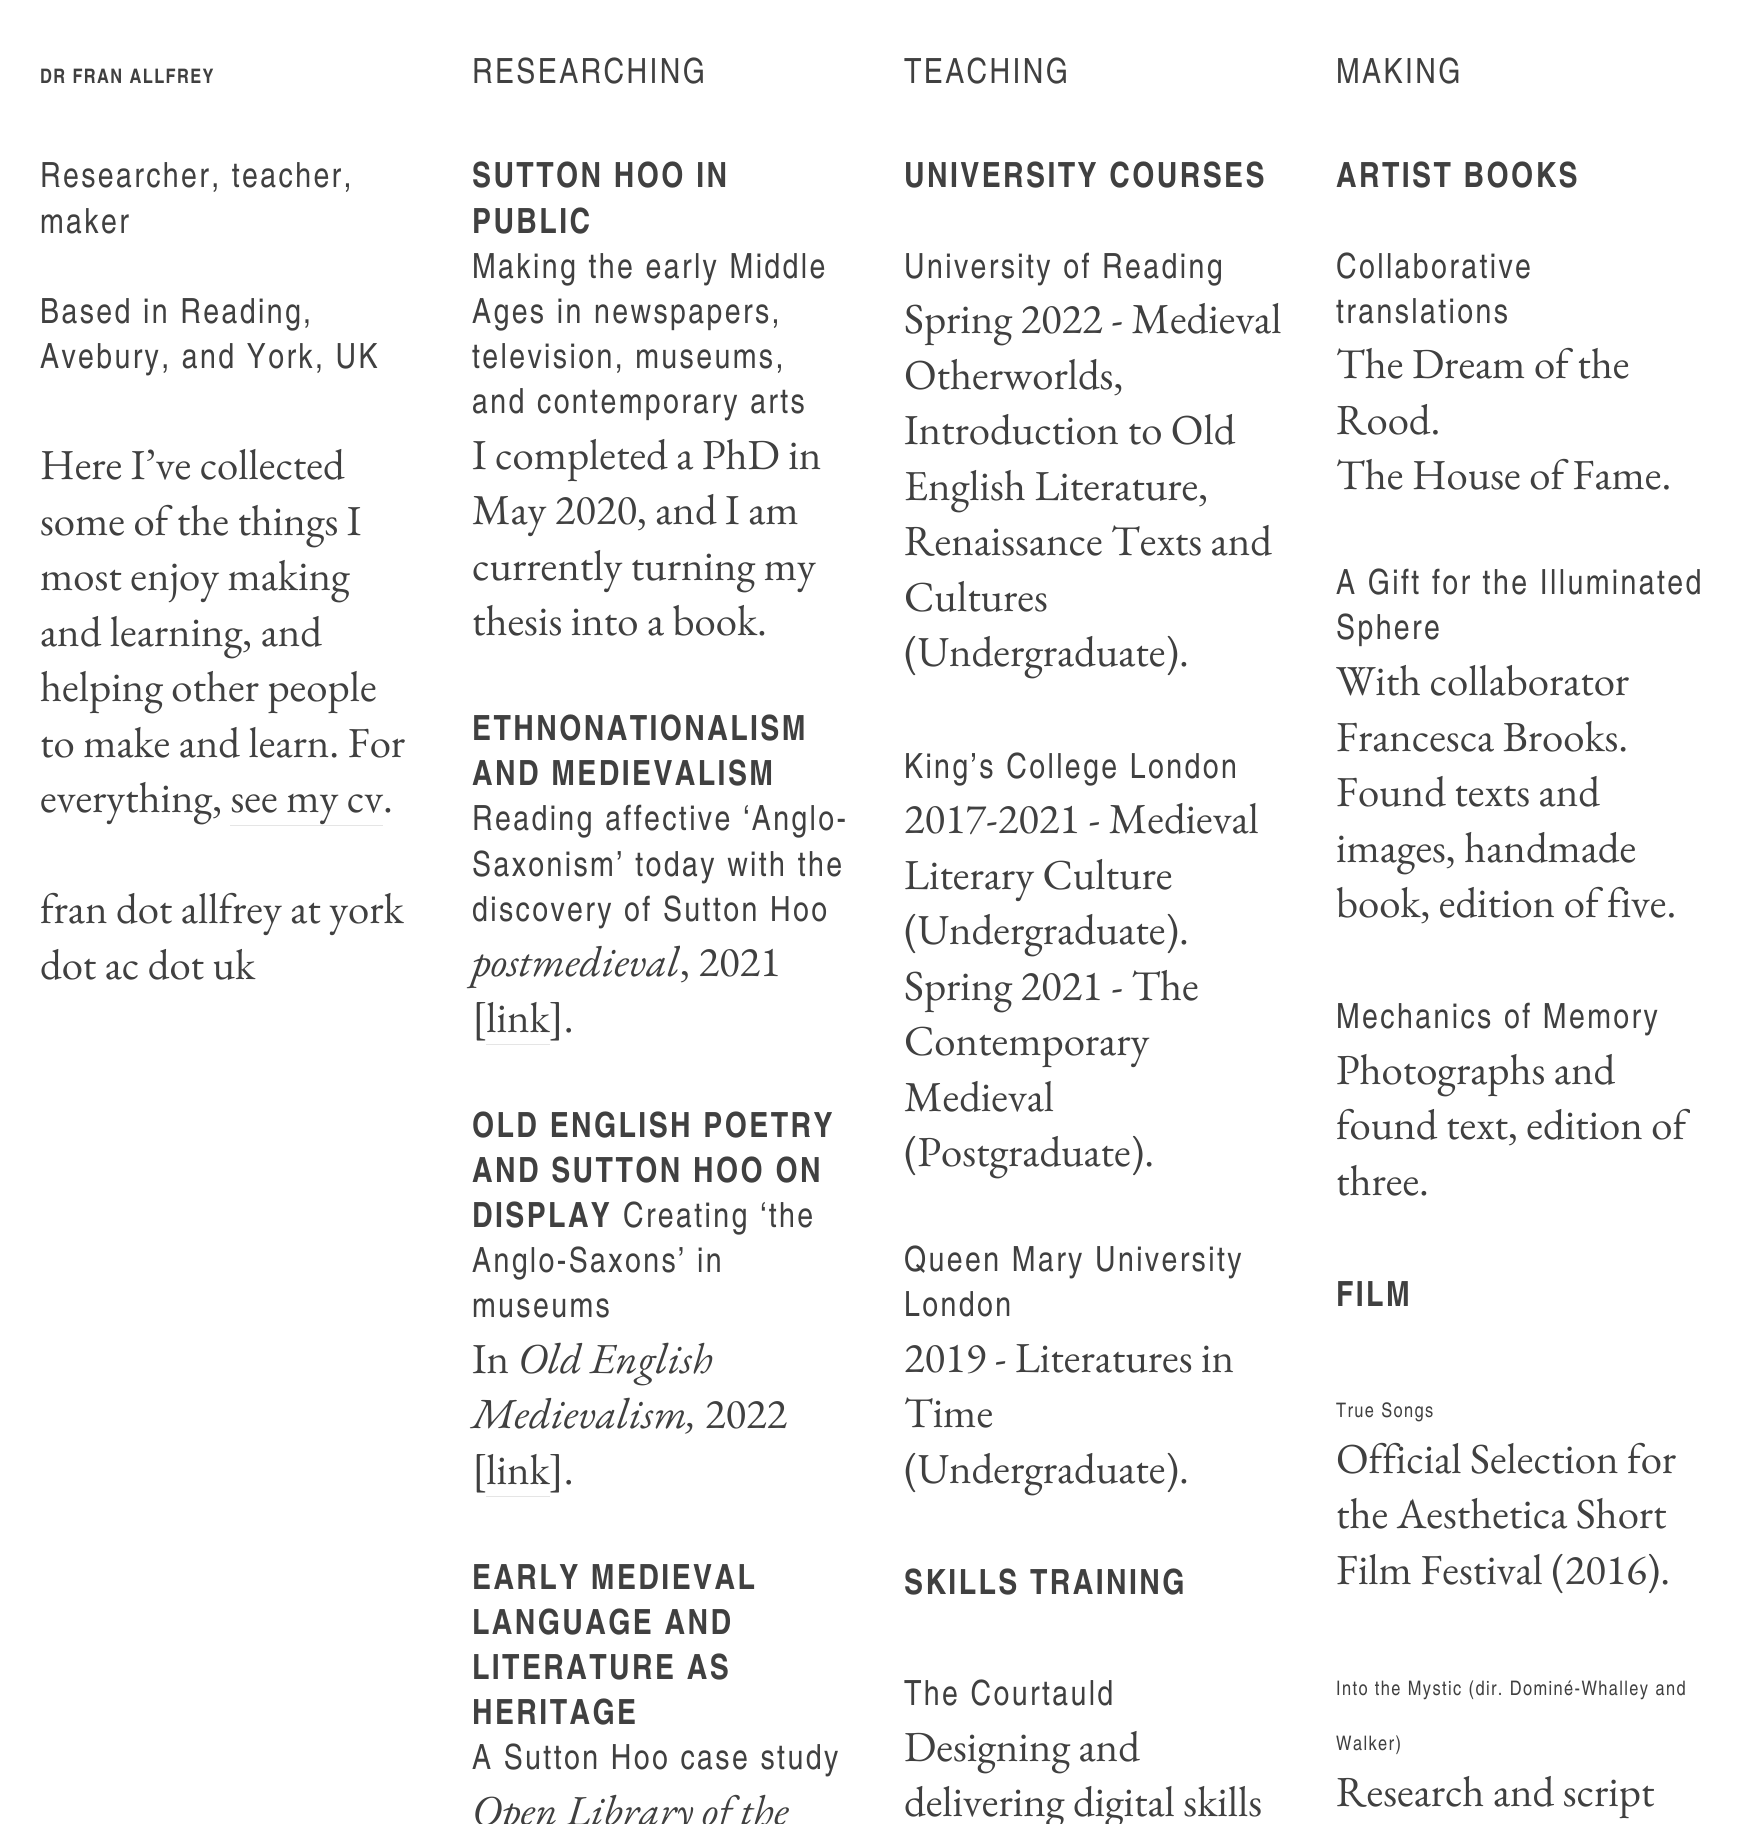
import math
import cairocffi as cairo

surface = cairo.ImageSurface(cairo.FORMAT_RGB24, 1754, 1824)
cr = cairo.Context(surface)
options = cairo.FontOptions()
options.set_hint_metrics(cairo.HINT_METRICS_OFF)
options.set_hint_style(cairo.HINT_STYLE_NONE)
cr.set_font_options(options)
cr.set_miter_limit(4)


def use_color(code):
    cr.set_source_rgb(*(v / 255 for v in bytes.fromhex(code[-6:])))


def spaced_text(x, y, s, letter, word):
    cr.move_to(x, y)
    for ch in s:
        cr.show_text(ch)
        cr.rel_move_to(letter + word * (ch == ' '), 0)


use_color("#ffffff")
cr.paint()
cr.select_font_face("TeX Gyre Heros Cn", cairo.FONT_SLANT_NORMAL, cairo.FONT_WEIGHT_BOLD)
cr.set_font_size(20)
use_color("#404040")
spaced_text(40, 83, "DR FRAN ALLFREY", 1.4, 0)
cr.select_font_face("TeX Gyre Heros Cn")
cr.set_font_size(34.75)
spaced_text(40, 187, "Researcher, teacher,", 2.4, 0)
spaced_text(40, 233, "maker", 2.4, 0)
spaced_text(40, 323, "Based in Reading,", 2.4, 0)
spaced_text(40, 368, "Avebury, and York, UK", 2.4, 0)
cr.select_font_face("EB Garamond")
cr.set_font_size(42.75)
cr.move_to(40, 479)
cr.show_text("Here I’ve collected")
cr.move_to(40, 535)
cr.show_text("some of the things I")
cr.move_to(40, 590)
cr.show_text("most enjoy making")
cr.move_to(40, 646)
cr.show_text("and learning, and")
cr.move_to(40, 701)
cr.show_text("helping other people")
cr.move_to(40, 757)
cr.show_text("to make and learn. For")
cr.move_to(40, 812)
cr.show_text("everything, see my cv.")
use_color("#e5e5e5")
cr.rectangle(230, 825, 153, 1)
cr.fill()
use_color("#404040")
cr.move_to(40, 923)
cr.show_text("fran dot allfrey at york")
cr.move_to(40, 979)
cr.show_text("dot ac dot uk")
cr.select_font_face("TeX Gyre Heros Cn")
cr.set_font_size(34.75)
spaced_text(472, 83, "RESEARCHING", 2.4, 0)
cr.select_font_face("TeX Gyre Heros Cn", cairo.FONT_SLANT_NORMAL, cairo.FONT_WEIGHT_BOLD)
spaced_text(472, 187, "SUTTON HOO IN", 2.4, 0)
spaced_text(472, 233, "PUBLIC", 2.4, 0)
cr.select_font_face("TeX Gyre Heros Cn")
spaced_text(472, 278, "Making the early Middle", 2.4, 0)
spaced_text(472, 323, "Ages in newspapers,", 2.4, 0)
spaced_text(472, 368, "television, museums,", 2.4, 0)
spaced_text(472, 413, "and contemporary arts", 2.4, 0)
cr.select_font_face("EB Garamond")
cr.set_font_size(42.75)
cr.move_to(472, 469)
cr.show_text("I completed a PhD in")
cr.move_to(472, 524)
cr.show_text("May 2020, and I am")
cr.move_to(472, 580)
cr.show_text("currently turning my")
cr.move_to(472, 635)
cr.show_text("thesis into a book.")
cr.select_font_face("TeX Gyre Heros Cn", cairo.FONT_SLANT_NORMAL, cairo.FONT_WEIGHT_BOLD)
cr.set_font_size(34.75)
spaced_text(472, 740, "ETHNONATIONALISM", 2.4, 0)
spaced_text(472, 785, "AND MEDIEVALISM", 2.4, 0)
cr.select_font_face("TeX Gyre Heros Cn")
spaced_text(472, 830, "Reading affective ‘Anglo-", 2.4, 0)
spaced_text(472, 876, "Saxonism’ today with the", 2.4, 0)
spaced_text(472, 921, "discovery of Sutton Hoo", 2.4, 0)
cr.select_font_face("EB Garamond", cairo.FONT_SLANT_ITALIC)
cr.set_font_size(42.75)
cr.move_to(472, 976)
cr.show_text("postmedieval")
cr.select_font_face("EB Garamond")
cr.move_to(680, 976)
cr.show_text(", 2021")
cr.move_to(472, 1032)
cr.show_text("[link].")
use_color("#e5e5e5")
cr.rectangle(486, 1044, 64, 1)
cr.fill()
cr.select_font_face("TeX Gyre Heros Cn", cairo.FONT_SLANT_NORMAL, cairo.FONT_WEIGHT_BOLD)
cr.set_font_size(34.75)
use_color("#404040")
spaced_text(472, 1137, "OLD ENGLISH POETRY", 2.4, 0)
spaced_text(472, 1182, "AND SUTTON HOO ON", 2.4, 0)
spaced_text(472, 1227, "DISPLAY", 2.4, 0)
cr.select_font_face("TeX Gyre Heros Cn")
spaced_text(623, 1227, "Creating ‘the", 2.4, 0)
spaced_text(472, 1272, "Anglo-Saxons’ in", 2.4, 0)
spaced_text(472, 1317, "museums", 2.4, 0)
cr.select_font_face("EB Garamond")
cr.set_font_size(42.75)
cr.move_to(472, 1373)
cr.show_text("In")
cr.select_font_face("EB Garamond", cairo.FONT_SLANT_ITALIC)
cr.move_to(518, 1373)
cr.show_text("Old English")
cr.move_to(472, 1428)
cr.show_text("Medievalism,")
cr.select_font_face("EB Garamond")
cr.move_to(705, 1428)
cr.show_text("2022")
cr.move_to(472, 1484)
cr.show_text("[link].")
use_color("#e5e5e5")
cr.rectangle(486, 1496, 64, 1)
cr.fill()
cr.select_font_face("TeX Gyre Heros Cn", cairo.FONT_SLANT_NORMAL, cairo.FONT_WEIGHT_BOLD)
cr.set_font_size(34.75)
use_color("#404040")
spaced_text(472, 1589, "EARLY MEDIEVAL", 2.4, 0)
spaced_text(472, 1634, "LANGUAGE AND", 2.4, 0)
spaced_text(472, 1679, "LITERATURE AS", 2.4, 0)
spaced_text(472, 1724, "HERITAGE", 2.4, 0)
cr.select_font_face("TeX Gyre Heros Cn")
spaced_text(472, 1769, "A Sutton Hoo case study", 2.4, 0)
cr.select_font_face("EB Garamond", cairo.FONT_SLANT_ITALIC)
cr.set_font_size(42.75)
cr.move_to(472, 1825)
cr.show_text("Open Library of the")
cr.select_font_face("TeX Gyre Heros Cn")
cr.set_font_size(34.75)
spaced_text(904, 83, "TEACHING", 2.4, 0)
cr.select_font_face("TeX Gyre Heros Cn", cairo.FONT_SLANT_NORMAL, cairo.FONT_WEIGHT_BOLD)
spaced_text(904, 187, "UNIVERSITY COURSES", 2.4, 0)
cr.select_font_face("TeX Gyre Heros Cn")
spaced_text(904, 278, "University of Reading", 2.4, 0)
cr.select_font_face("EB Garamond")
cr.set_font_size(42.75)
cr.move_to(904, 333)
cr.show_text("Spring 2022 - Medieval")
cr.move_to(904, 389)
cr.show_text("Otherworlds,")
cr.move_to(904, 444)
cr.show_text("Introduction to Old")
cr.move_to(904, 500)
cr.show_text("English Literature,")
cr.move_to(904, 555)
cr.show_text("Renaissance Texts and")
cr.move_to(904, 611)
cr.show_text("Cultures")
cr.move_to(904, 666)
cr.show_text("(Undergraduate).")
cr.select_font_face("TeX Gyre Heros Cn")
cr.set_font_size(34.75)
spaced_text(904, 778, "King’s College London", 2.4, 0)
cr.select_font_face("EB Garamond")
cr.set_font_size(42.75)
cr.move_to(904, 833)
cr.show_text("2017-2021 - Medieval")
cr.move_to(904, 889)
cr.show_text("Literary Culture")
cr.move_to(904, 944)
cr.show_text("(Undergraduate).")
cr.move_to(904, 1000)
cr.show_text("Spring 2021 - The")
cr.move_to(904, 1055)
cr.show_text("Contemporary")
cr.move_to(904, 1111)
cr.show_text("Medieval")
cr.move_to(904, 1166)
cr.show_text("(Postgraduate).")
cr.select_font_face("TeX Gyre Heros Cn")
cr.set_font_size(34.75)
spaced_text(904, 1271, "Queen Mary University", 2.4, 0)
spaced_text(904, 1316, "London", 2.4, 0)
cr.select_font_face("EB Garamond")
cr.set_font_size(42.75)
cr.move_to(904, 1372)
cr.show_text("2019 - Literatures in")
cr.move_to(904, 1427)
cr.show_text("Time")
cr.move_to(904, 1483)
cr.show_text("(Undergraduate).")
cr.select_font_face("TeX Gyre Heros Cn", cairo.FONT_SLANT_NORMAL, cairo.FONT_WEIGHT_BOLD)
cr.set_font_size(34.75)
spaced_text(904, 1594, "SKILLS TRAINING", 2.4, 0)
cr.select_font_face("TeX Gyre Heros Cn")
spaced_text(904, 1705, "The Courtauld", 2.4, 0)
cr.select_font_face("EB Garamond")
cr.set_font_size(42.75)
cr.move_to(904, 1761)
cr.show_text("Designing and")
cr.move_to(904, 1816)
cr.show_text("delivering digital skills")
cr.select_font_face("TeX Gyre Heros Cn")
cr.set_font_size(34.75)
spaced_text(1336, 83, "MAKING", 2.4, 0)
cr.select_font_face("TeX Gyre Heros Cn", cairo.FONT_SLANT_NORMAL, cairo.FONT_WEIGHT_BOLD)
spaced_text(1336, 187, "ARTIST BOOKS", 2.4, 0)
cr.select_font_face("TeX Gyre Heros Cn")
spaced_text(1336, 278, "Collaborative", 2.4, 0)
spaced_text(1336, 323, "translations", 2.4, 0)
cr.select_font_face("EB Garamond")
cr.set_font_size(42.75)
cr.move_to(1336, 378)
cr.show_text("The Dream of the")
cr.move_to(1336, 434)
cr.show_text("Rood.")
cr.move_to(1336, 489)
cr.show_text("The House of Fame.")
cr.select_font_face("TeX Gyre Heros Cn")
cr.set_font_size(34.75)
spaced_text(1336, 594, "A Gift for the Illuminated", 2.4, 0)
spaced_text(1336, 639, "Sphere", 2.4, 0)
cr.select_font_face("EB Garamond")
cr.set_font_size(42.75)
cr.move_to(1336, 695)
cr.show_text("With collaborator")
cr.move_to(1336, 751)
cr.show_text("Francesca Brooks.")
cr.move_to(1336, 806)
cr.show_text("Found texts and")
cr.move_to(1336, 862)
cr.show_text("images, handmade")
cr.move_to(1336, 917)
cr.show_text("book, edition of five.")
cr.select_font_face("TeX Gyre Heros Cn")
cr.set_font_size(34.75)
spaced_text(1336, 1028, "Mechanics of Memory", 2.4, 0)
cr.select_font_face("EB Garamond")
cr.set_font_size(42.75)
cr.move_to(1336, 1084)
cr.show_text("Photographs and")
cr.move_to(1336, 1139)
cr.show_text("found text, edition of")
cr.move_to(1336, 1195)
cr.show_text("three.")
cr.select_font_face("TeX Gyre Heros Cn", cairo.FONT_SLANT_NORMAL, cairo.FONT_WEIGHT_BOLD)
cr.set_font_size(34.75)
spaced_text(1336, 1306, "FILM", 2.4, 0)
cr.select_font_face("TeX Gyre Heros Cn")
cr.set_font_size(20)
spaced_text(1336, 1417, "True Songs", 1.4, 0)
cr.select_font_face("EB Garamond")
cr.set_font_size(42.75)
cr.move_to(1336, 1473)
cr.show_text("Official Selection for")
cr.move_to(1336, 1528)
cr.show_text("the Aesthetica Short")
cr.move_to(1336, 1584)
cr.show_text("Film Festival (2016).")
cr.select_font_face("TeX Gyre Heros Cn")
cr.set_font_size(20)
spaced_text(1336, 1695, "Into the Mystic (dir. Dominé-Whalley and", 1.4, 0)
spaced_text(1336, 1750, "Walker)", 1.4, 0)
cr.select_font_face("EB Garamond")
cr.set_font_size(42.75)
cr.move_to(1336, 1806)
cr.show_text("Research and script")
surface.write_to_png("result.png")
